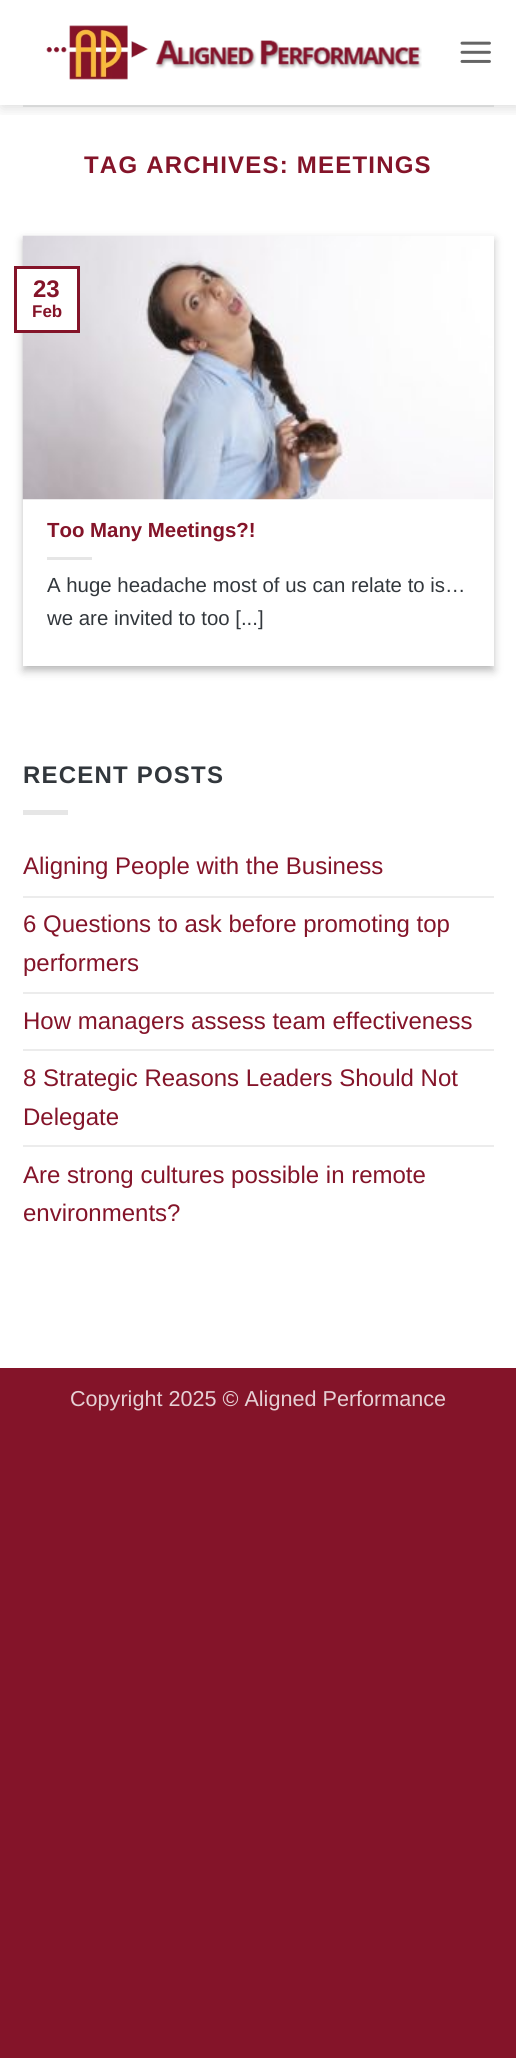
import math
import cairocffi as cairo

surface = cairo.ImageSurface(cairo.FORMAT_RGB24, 516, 2058)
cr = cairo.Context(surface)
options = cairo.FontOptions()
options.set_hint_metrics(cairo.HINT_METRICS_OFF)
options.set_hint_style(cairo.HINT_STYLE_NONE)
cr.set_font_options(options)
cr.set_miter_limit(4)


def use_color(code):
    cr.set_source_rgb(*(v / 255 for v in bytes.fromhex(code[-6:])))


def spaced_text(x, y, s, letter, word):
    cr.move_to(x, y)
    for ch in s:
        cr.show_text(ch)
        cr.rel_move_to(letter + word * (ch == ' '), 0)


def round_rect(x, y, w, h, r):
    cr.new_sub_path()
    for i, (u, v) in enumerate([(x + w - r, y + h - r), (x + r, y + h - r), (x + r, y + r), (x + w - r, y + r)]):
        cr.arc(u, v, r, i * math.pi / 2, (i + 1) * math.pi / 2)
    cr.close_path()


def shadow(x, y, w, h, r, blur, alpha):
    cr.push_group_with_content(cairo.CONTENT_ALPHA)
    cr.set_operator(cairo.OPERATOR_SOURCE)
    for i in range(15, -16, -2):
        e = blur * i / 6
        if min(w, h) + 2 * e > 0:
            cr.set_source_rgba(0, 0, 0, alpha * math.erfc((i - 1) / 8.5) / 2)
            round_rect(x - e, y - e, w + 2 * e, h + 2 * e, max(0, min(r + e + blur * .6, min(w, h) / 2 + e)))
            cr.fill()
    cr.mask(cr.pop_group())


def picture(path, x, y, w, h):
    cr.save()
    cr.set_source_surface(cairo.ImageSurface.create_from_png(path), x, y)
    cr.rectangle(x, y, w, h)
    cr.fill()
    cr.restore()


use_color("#841429")
cr.paint()
use_color("#ffffff")
cr.rectangle(0, 0, 516, 1368)
cr.fill()
cr.save()
cr.rectangle(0, 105, 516, 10)
cr.clip()
use_color("#000000")
shadow(2, 2, 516, 105, 0, 7.5, 0.15)
cr.restore()
picture("img1.png", 46, 25, 376, 55)
picture("img2.png", 460, 41, 31, 22)
use_color("#d7d8d8")
cr.rectangle(23, 105, 471, 2)
cr.fill()
cr.select_font_face("Liberation Sans", cairo.FONT_SLANT_NORMAL, cairo.FONT_WEIGHT_BOLD)
cr.set_font_size(24)
use_color("#841429")
spaced_text(84, 173, "TAG ARCHIVES: MEETINGS", 1.2, 0)
use_color("#000000")
shadow(23, 240, 471, 431, 0, 4.5, 0.23)
shadow(29, 246, 459, 419, 0, 4.5, 0.16)
use_color("#ffffff")
cr.rectangle(23, 236, 471, 430)
cr.fill()
picture("img3.png", 22, 235, 471, 265)
cr.rectangle(15.5, 267.5, 63, 64)
cr.fill_preserve()
use_color("#841429")
cr.set_line_width(3)
cr.stroke()
cr.move_to(33, 297)
cr.show_text("23")
cr.set_font_size(17)
cr.move_to(32, 317)
cr.show_text("Feb")
cr.set_font_size(20.4)
cr.move_to(47, 537)
cr.show_text("Too Many Meetings?!")
use_color("#e6e6e6")
cr.rectangle(47, 557, 45, 3)
cr.fill()
cr.select_font_face("Liberation Sans")
use_color("#32373c")
cr.move_to(47, 592)
cr.show_text("A huge headache most of us can relate to is…")
cr.move_to(47, 625)
cr.show_text("we are invited to too [...]")
cr.select_font_face("Liberation Sans", cairo.FONT_SLANT_NORMAL, cairo.FONT_WEIGHT_BOLD)
cr.set_font_size(24)
spaced_text(23, 783, "RECENT POSTS", 1.2, 0)
use_color("#e6e6e6")
cr.rectangle(23, 810, 45, 5)
cr.fill()
cr.select_font_face("Liberation Sans")
use_color("#841429")
cr.move_to(23, 874)
cr.show_text("Aligning People with the Business")
use_color("#ececec")
cr.rectangle(23, 896, 471, 2)
cr.fill()
use_color("#841429")
cr.move_to(23, 932)
cr.show_text("6 Questions to ask before promoting top")
cr.move_to(23, 971)
cr.show_text("performers")
use_color("#ececec")
cr.rectangle(23, 992, 471, 2)
cr.fill()
use_color("#841429")
cr.move_to(23, 1029)
cr.show_text("How managers assess team effectiveness")
use_color("#ececec")
cr.rectangle(23, 1049, 471, 2)
cr.fill()
use_color("#841429")
cr.move_to(23, 1086)
cr.show_text("8 Strategic Reasons Leaders Should Not")
cr.move_to(23, 1125)
cr.show_text("Delegate")
use_color("#ececec")
cr.rectangle(23, 1145, 471, 2)
cr.fill()
use_color("#841429")
cr.move_to(23, 1183)
cr.show_text("Are strong cultures possible in remote")
cr.move_to(23, 1221)
cr.show_text("environments?")
cr.set_font_size(21.6)
use_color("#e6d0d4")
cr.move_to(70, 1406)
cr.show_text("Copyright 2025 © Aligned Performance")
surface.write_to_png("result.png")
